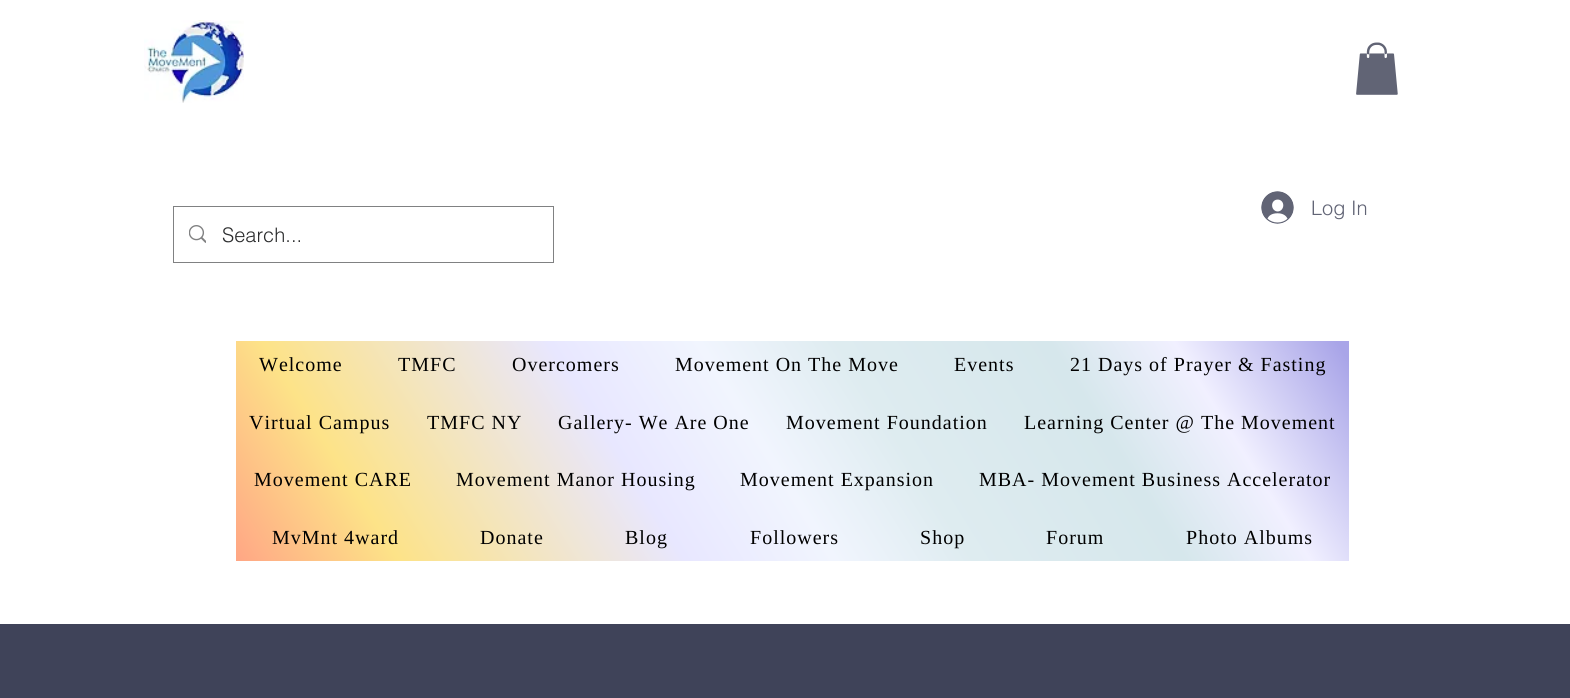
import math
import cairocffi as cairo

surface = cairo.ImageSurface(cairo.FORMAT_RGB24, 1570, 698)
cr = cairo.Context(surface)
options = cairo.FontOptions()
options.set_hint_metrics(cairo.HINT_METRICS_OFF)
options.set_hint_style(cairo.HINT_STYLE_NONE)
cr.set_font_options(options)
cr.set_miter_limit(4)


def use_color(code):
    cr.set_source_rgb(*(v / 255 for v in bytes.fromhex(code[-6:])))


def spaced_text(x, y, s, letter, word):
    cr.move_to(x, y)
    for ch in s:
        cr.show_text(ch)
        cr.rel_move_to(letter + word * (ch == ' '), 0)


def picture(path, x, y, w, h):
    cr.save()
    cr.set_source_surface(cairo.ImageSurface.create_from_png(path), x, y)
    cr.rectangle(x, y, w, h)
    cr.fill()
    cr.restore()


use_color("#ffffff")
cr.paint()
picture("img1.png", 144, 20, 100, 83)
picture("img2.png", 1356, 42, 42, 53)
picture("img3.png", 1261, 191, 33, 33)
cr.select_font_face("helvetica Light")
cr.set_font_size(20)
use_color("#616475")
cr.move_to(1311, 215)
cr.show_text("Log In")
cr.rectangle(173.5, 206.5, 380, 56)
use_color("#808182")
cr.set_line_width(1)
cr.stroke()
picture("img4.png", 189, 225, 17, 18)
use_color("#2c2d2e")
cr.move_to(222, 242)
cr.show_text("Search...")
gradient = cairo.LinearGradient(343, 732, 1242, 170)
gradient.add_color_stop_rgba(0, 1, 0.651, 0.522, 1)
gradient.add_color_stop_rgba(0.13, 0.992, 0.89, 0.533, 1)
gradient.add_color_stop_rgba(0.36, 0.91, 0.906, 1, 1)
gradient.add_color_stop_rgba(0.48, 0.945, 0.961, 0.996, 1)
gradient.add_color_stop_rgba(0.59, 0.871, 0.925, 0.941, 1)
gradient.add_color_stop_rgba(0.76, 0.839, 0.906, 0.925, 1)
gradient.add_color_stop_rgba(0.86, 0.945, 0.941, 1, 1)
gradient.add_color_stop_rgba(0.99, 0.663, 0.647, 0.91, 1)
cr.set_source(gradient)
cr.rectangle(236, 341, 1113, 220)
cr.fill()
cr.select_font_face("Liberation Serif")
use_color("#000000")
spaced_text(259, 371, "Welcome", 1, 0)
spaced_text(398, 371, "TMFC", 1, 0)
spaced_text(512, 371, "Overcomers", 1, 0)
spaced_text(675, 371, "Movement On The Move", 1, 0)
spaced_text(954, 371, "Events", 1, 0)
spaced_text(1070, 371, "21 Days of Prayer & Fasting", 1, 0)
spaced_text(249, 429, "Virtual Campus", 1, 0)
spaced_text(427, 429, "TMFC NY", 1, 0)
spaced_text(558, 429, "Gallery- We Are One", 1, 0)
spaced_text(786, 429, "Movement Foundation", 1, 0)
spaced_text(1024, 429, "Learning Center @ The Movement", 1, 0)
spaced_text(254, 486, "Movement CARE", 1, 0)
spaced_text(456, 486, "Movement Manor Housing", 1, 0)
spaced_text(740, 486, "Movement Expansion", 1, 0)
spaced_text(979, 486, "MBA- Movement Business Accelerator", 1, 0)
spaced_text(272, 544, "MvMnt 4ward", 1, 0)
spaced_text(480, 544, "Donate", 1, 0)
spaced_text(625, 544, "Blog", 1, 0)
spaced_text(750, 544, "Followers", 1, 0)
spaced_text(920, 544, "Shop", 1, 0)
spaced_text(1046, 544, "Forum", 1, 0)
spaced_text(1186, 544, "Photo Albums", 1, 0)
use_color("#3f4359")
cr.rectangle(0, 624, 1570, 74)
cr.fill()
surface.write_to_png("result.png")
